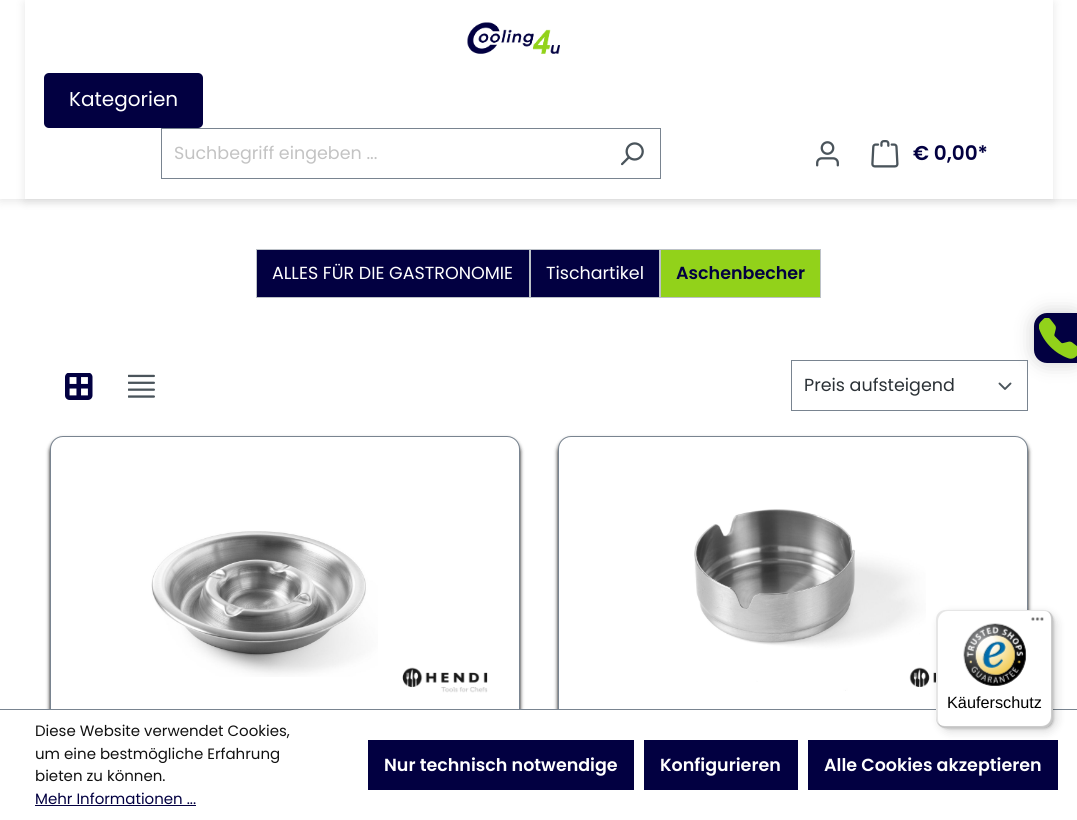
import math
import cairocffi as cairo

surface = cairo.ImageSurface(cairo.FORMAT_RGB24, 1077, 820)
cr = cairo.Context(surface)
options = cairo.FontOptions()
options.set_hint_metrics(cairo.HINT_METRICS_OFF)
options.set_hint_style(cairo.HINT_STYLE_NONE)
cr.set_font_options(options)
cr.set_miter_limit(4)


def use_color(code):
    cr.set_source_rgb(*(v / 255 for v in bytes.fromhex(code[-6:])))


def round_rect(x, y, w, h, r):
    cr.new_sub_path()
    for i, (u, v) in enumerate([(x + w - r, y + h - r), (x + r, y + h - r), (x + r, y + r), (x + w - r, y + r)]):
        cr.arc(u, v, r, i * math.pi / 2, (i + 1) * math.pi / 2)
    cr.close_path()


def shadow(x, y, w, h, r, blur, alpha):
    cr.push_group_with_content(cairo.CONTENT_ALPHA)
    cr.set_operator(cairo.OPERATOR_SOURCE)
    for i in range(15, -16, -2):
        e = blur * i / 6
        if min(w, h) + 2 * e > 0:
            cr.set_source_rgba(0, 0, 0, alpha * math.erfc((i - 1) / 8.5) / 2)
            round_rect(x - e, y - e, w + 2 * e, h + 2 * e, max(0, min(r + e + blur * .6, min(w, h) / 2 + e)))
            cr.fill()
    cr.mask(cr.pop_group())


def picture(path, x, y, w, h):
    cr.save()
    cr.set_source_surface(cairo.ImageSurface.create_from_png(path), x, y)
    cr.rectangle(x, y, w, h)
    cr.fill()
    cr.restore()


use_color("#ffffff")
cr.paint()
use_color("#000000")
shadow(0, 3, 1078, 198, 0, 5, 0.1)
use_color("#ffffff")
cr.rectangle(0, 0, 1077, 199)
cr.fill()
cr.save()
cr.set_fill_rule(cairo.FILL_RULE_EVEN_ODD)
cr.new_path()
cr.move_to(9, 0)
cr.line_to(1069, 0)
cr.line_to(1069, 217)
cr.line_to(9, 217)
cr.close_path()
cr.move_to(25, 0)
cr.line_to(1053, 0)
cr.line_to(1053, 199)
cr.line_to(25, 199)
cr.close_path()
cr.clip()
use_color("#000000")
shadow(25, 3, 1028, 198, 0, 5, 0.1)
cr.restore()
use_color("#020041")
round_rect(44, 73, 159, 55, 5)
cr.fill()
cr.select_font_face("Poppins")
cr.set_font_size(20)
use_color("#ffffff")
cr.move_to(69, 106)
cr.show_text("Kategorien")
picture("img1.png", 467, 22, 93, 32)
cr.new_path()
cr.move_to(999.5, 383.5)
cr.line_to(1005, 389)
cr.line_to(1010.5, 383.5)
use_color("#4a545b")
cr.set_line_width(1.9)
cr.set_line_cap(cairo.LINE_CAP_ROUND)
cr.set_line_join(cairo.LINE_JOIN_ROUND)
cr.stroke()
cr.rectangle(791.5, 360.5, 236, 50)
use_color("#798490")
cr.set_line_width(1)
cr.set_line_cap(cairo.LINE_CAP_BUTT)
cr.set_line_join(cairo.LINE_JOIN_MITER)
cr.stroke()
use_color("#9b9b9b")
shadow(1034, 313, 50, 50, 13, 9.5, 0.5)
use_color("#020041")
cr.new_path()
cr.move_to(1047, 313)
cr.line_to(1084, 313)
cr.line_to(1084, 363)
cr.line_to(1047, 363)
cr.curve_to(1040, 363, 1034, 357, 1034, 350)
cr.line_to(1034, 326)
cr.curve_to(1034, 319, 1040, 313, 1047, 313)
cr.close_path()
cr.fill()
picture("img2.png", 1039, 318, 38, 41)
use_color("#798490")
cr.rectangle(161, 128, 500, 1)
cr.fill()
cr.rectangle(161, 178, 443, 1)
cr.fill()
cr.rectangle(161, 128, 1, 51)
cr.fill()
cr.set_font_size(17.5)
use_color("#c3c3c3")
cr.move_to(174, 159)
cr.show_text("Suchbegriff eingeben ...")
use_color("#798490")
cr.rectangle(660, 128, 1, 51)
cr.fill()
cr.rectangle(603, 178, 58, 1)
cr.fill()
picture("img3.png", 621, 142, 23, 24)
picture("img4.png", 816, 141, 23, 26)
picture("img5.png", 871, 140, 28, 28)
cr.select_font_face("Poppins SemiBold")
cr.set_font_size(20)
use_color("#020041")
cr.move_to(913, 160)
cr.show_text("€ 0,00*")
cr.rectangle(256.5, 249.5, 273, 48)
cr.fill_preserve()
use_color("#bcc1c7")
cr.stroke()
cr.select_font_face("Poppins")
cr.set_font_size(17.5)
use_color("#ffffff")
cr.move_to(272, 279)
cr.show_text("ALLES FÜR DIE GASTRONOMIE")
use_color("#020041")
cr.rectangle(530.5, 249.5, 129, 48)
cr.fill_preserve()
use_color("#bcc1c7")
cr.stroke()
use_color("#ffffff")
cr.move_to(546, 279)
cr.show_text("Tischartikel")
use_color("#92d21a")
cr.rectangle(660.5, 249.5, 160, 48)
cr.fill_preserve()
use_color("#bcc1c7")
cr.stroke()
cr.select_font_face("Poppins SemiBold")
use_color("#020041")
cr.move_to(676, 279)
cr.show_text("Aschenbecher")
picture("img6.png", 65, 373, 28, 27)
picture("img7.png", 128, 374, 27, 24)
cr.select_font_face("Poppins")
use_color("#2b3136")
cr.move_to(804, 391)
cr.show_text("Preis aufsteigend")
use_color("#000000")
shadow(50, 439, 470, 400, 13, 2, 1)
use_color("#ffffff")
round_rect(50.5, 436.5, 469, 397, 12.5)
cr.fill_preserve()
use_color("#798490")
cr.stroke()
picture("img8.png", 151, 531, 227, 146)
picture("img9.png", 402, 667, 86, 26)
use_color("#000000")
shadow(558, 439, 470, 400, 13, 2, 1)
use_color("#ffffff")
round_rect(558.5, 436.5, 469, 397, 12.5)
cr.fill_preserve()
use_color("#798490")
cr.stroke()
picture("img10.png", 694, 509, 232, 182)
picture("img11.png", 909, 667, 27, 20)
use_color("#ffffff")
cr.rectangle(45, 710, 988, 110)
cr.fill()
use_color("#798490")
cr.rectangle(0, 709, 1077, 1)
cr.fill()
use_color("#020041")
cr.rectangle(808, 740, 250, 50)
cr.fill()
use_color("#000000")
shadow(940, 614, 116, 117, 10, 5, 0.15)
shadow(938, 611, 116, 118, 10, 1, 0.15)
use_color("#ffffff")
round_rect(936, 610, 117, 118, 10)
cr.fill()
cr.set_source_rgba(0, 0, 0, 0.1)
cr.new_path()
cr.move_to(948, 611)
cr.line_to(1044, 611)
cr.curve_to(1047, 611, 1050, 613, 1052, 615)
cr.curve_to(1050, 612, 1047, 610, 1043, 610)
cr.line_to(946, 610)
cr.curve_to(940, 610, 936, 614, 936, 620)
cr.line_to(936, 718)
cr.curve_to(936, 722, 939, 726, 943, 727)
cr.curve_to(940, 726, 938, 722, 938, 719)
cr.line_to(938, 621)
cr.curve_to(938, 616, 942, 611, 948, 611)
cr.close_path()
cr.fill()
cr.set_source_rgba(0, 0, 0, 0.2)
cr.new_path()
cr.move_to(937, 722)
cr.curve_to(939, 726, 942, 728, 946, 728)
cr.line_to(1043, 728)
cr.curve_to(1049, 728, 1053, 724, 1053, 718)
cr.line_to(1053, 620)
cr.curve_to(1053, 616, 1051, 613, 1047, 611)
cr.curve_to(1050, 613, 1051, 616, 1051, 619)
cr.line_to(1051, 716)
cr.curve_to(1051, 722, 1047, 726, 1041, 726)
cr.line_to(945, 726)
cr.curve_to(942, 726, 939, 725, 937, 722)
cr.close_path()
cr.fill()
cr.set_source_rgba(0.196, 0.196, 0.196, 0.2)
cr.new_path()
cr.move_to(936, 717)
cr.line_to(936, 718)
cr.curve_to(936, 724, 940, 728, 946, 728)
cr.line_to(1043, 728)
cr.curve_to(1049, 728, 1053, 724, 1053, 718)
cr.line_to(1053, 620)
cr.curve_to(1053, 616, 1051, 613, 1048, 611)
cr.curve_to(1050, 613, 1052, 616, 1052, 619)
cr.line_to(1052, 717)
cr.curve_to(1052, 722, 1047, 727, 1042, 727)
cr.line_to(946, 727)
cr.curve_to(940, 727, 936, 722, 936, 717)
cr.close_path()
cr.fill()
cr.set_source_rgba(1, 1, 1, 0.3)
cr.new_path()
cr.move_to(936, 717)
cr.line_to(936, 718)
cr.curve_to(936, 724, 940, 728, 946, 728)
cr.line_to(1043, 728)
cr.curve_to(1049, 728, 1053, 724, 1053, 718)
cr.line_to(1053, 620)
cr.curve_to(1053, 616, 1051, 613, 1048, 611)
cr.curve_to(1050, 613, 1052, 616, 1052, 619)
cr.line_to(1052, 717)
cr.curve_to(1052, 722, 1047, 727, 1042, 727)
cr.line_to(946, 727)
cr.curve_to(940, 727, 936, 722, 936, 717)
cr.close_path()
cr.fill()
picture("img12.png", 1031, 617, 13, 4)
picture("img13.png", 963, 623, 64, 63)
cr.select_font_face("Liberation Sans")
cr.set_font_size(16.25)
use_color("#000000")
cr.move_to(947, 708)
cr.show_text("Käuferschutz")
cr.select_font_face("Poppins")
cr.set_font_size(15)
use_color("#111111")
cr.move_to(35, 736)
cr.show_text("Diese Website verwendet Cookies,")
cr.move_to(35, 759)
cr.show_text("um eine bestmögliche Erfahrung")
cr.move_to(35, 781)
cr.show_text("bieten zu können.")
use_color("#020041")
cr.move_to(35, 804)
cr.show_text("Mehr Informationen ...")
cr.rectangle(35, 805, 161, 1)
cr.fill()
cr.rectangle(368, 740, 266, 50)
cr.fill()
cr.select_font_face("Poppins SemiBold")
cr.set_font_size(17.5)
use_color("#ffffff")
cr.move_to(384, 771)
cr.show_text("Nur technisch notwendige")
use_color("#020041")
cr.rectangle(644, 740, 154, 50)
cr.fill()
use_color("#ffffff")
cr.move_to(660, 771)
cr.show_text("Konfigurieren")
cr.move_to(824, 771)
cr.show_text("Alle Cookies akzeptieren")
surface.write_to_png("result.png")
